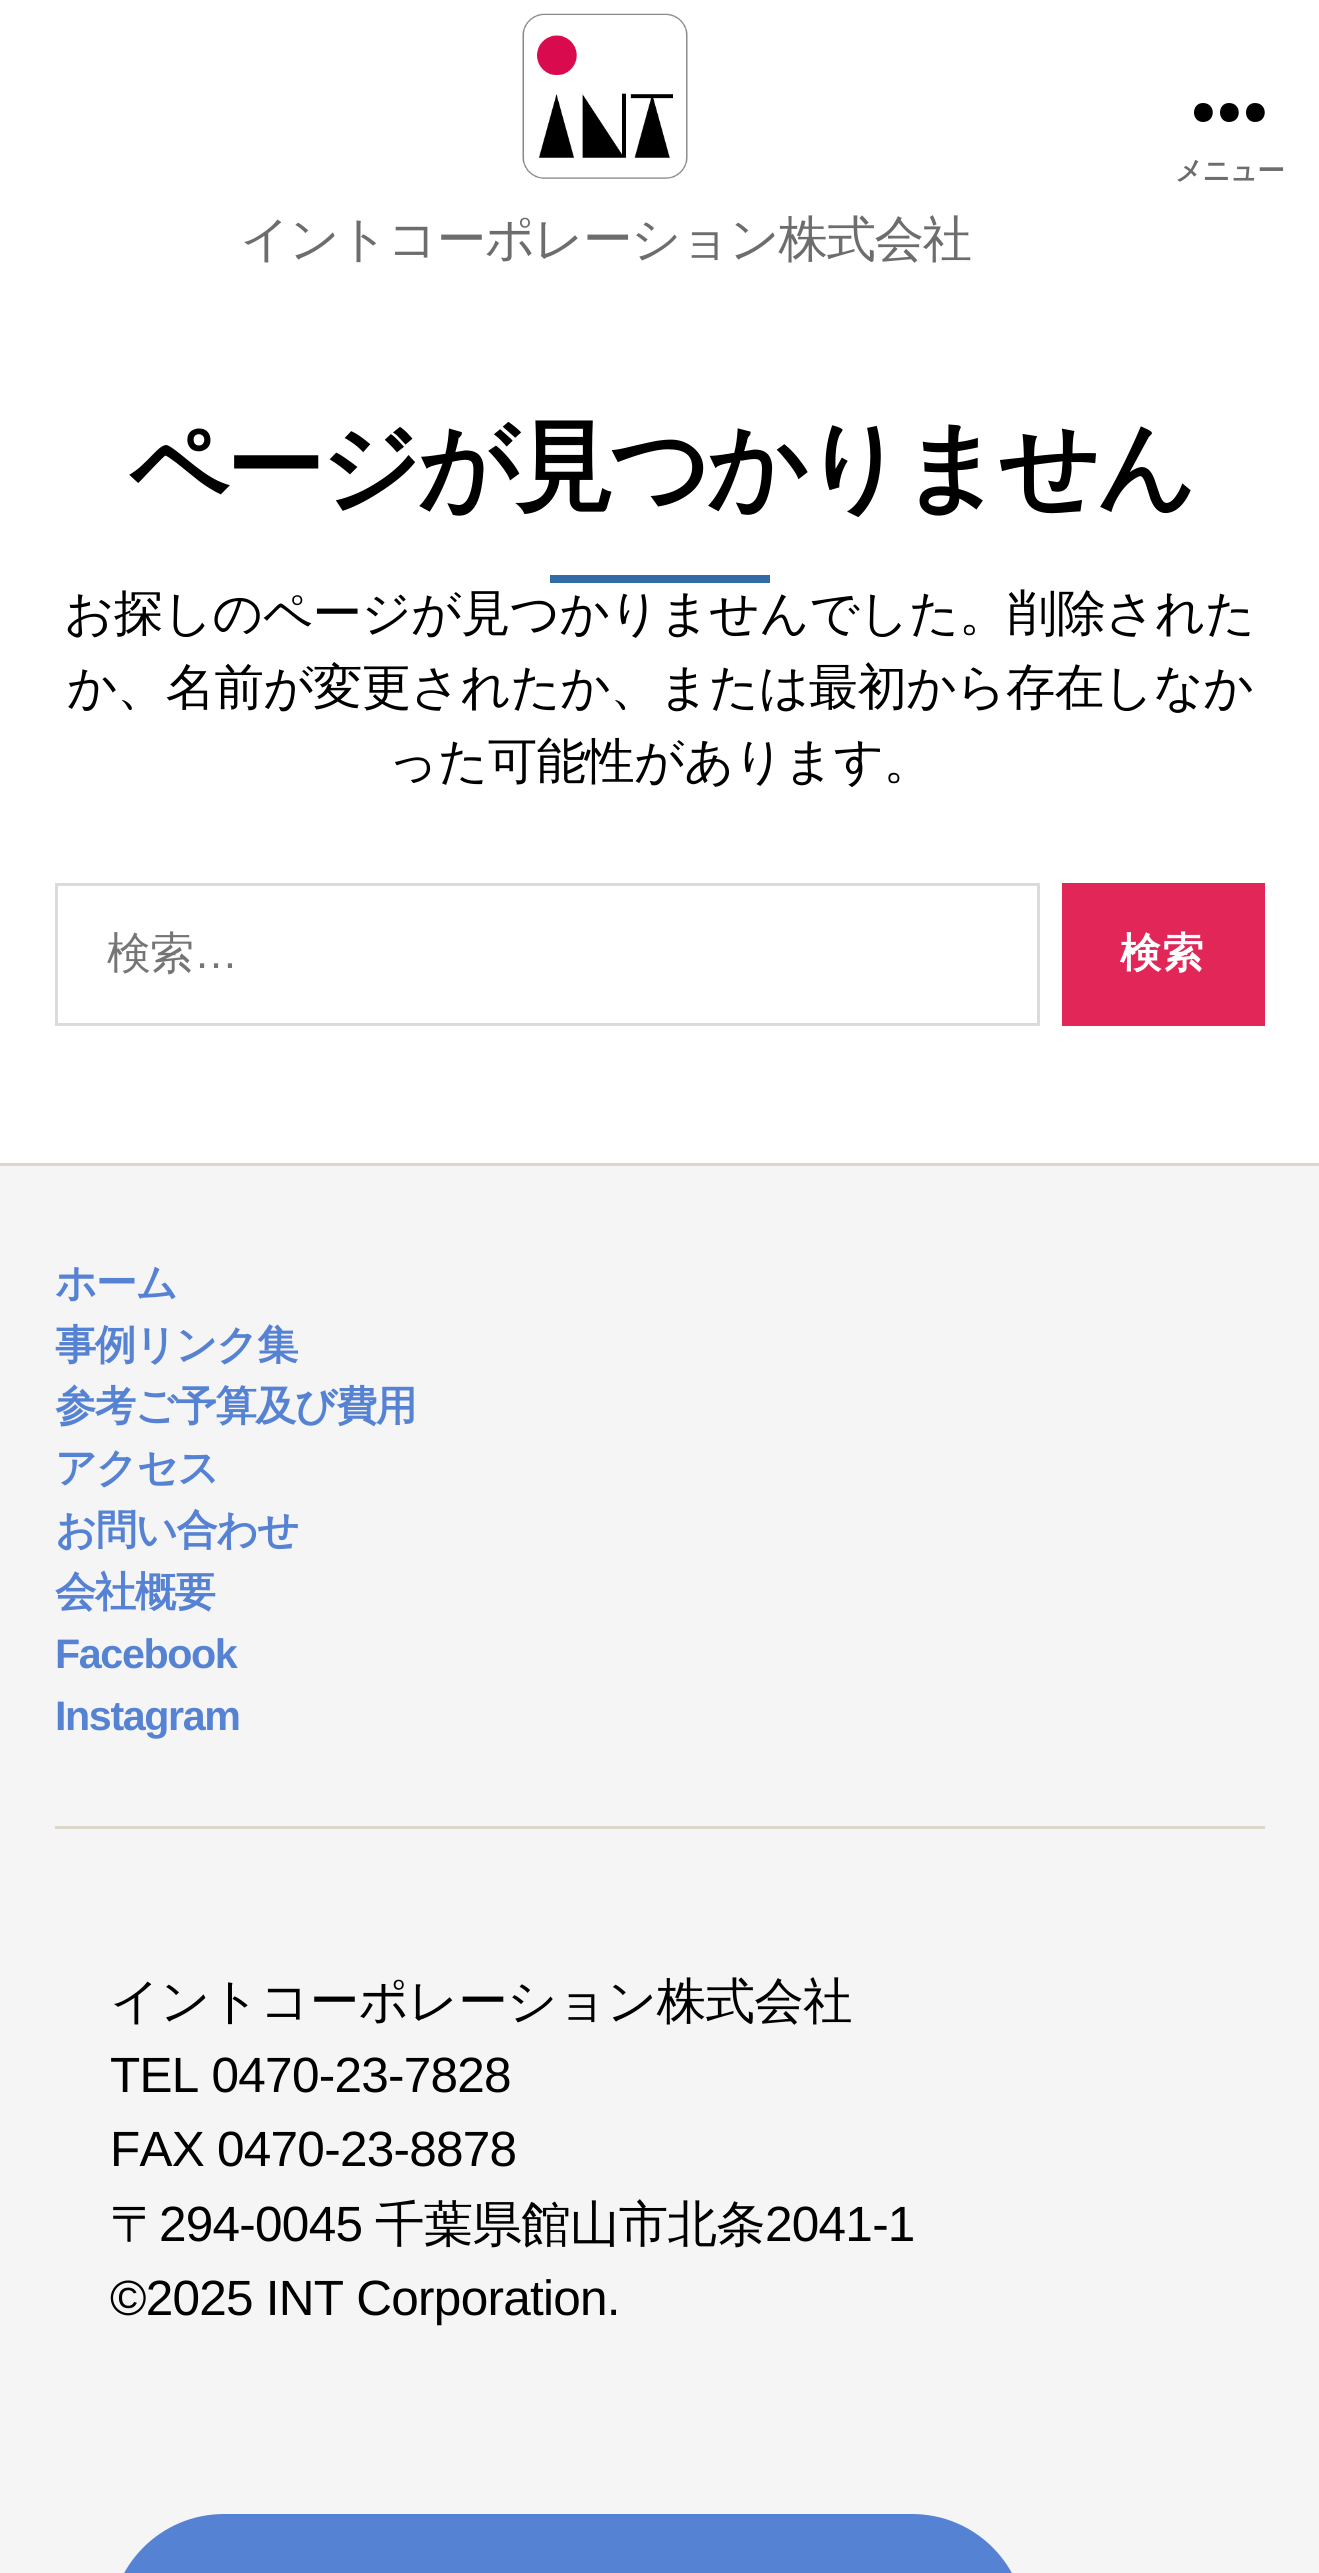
import math
import cairocffi as cairo

surface = cairo.ImageSurface(cairo.FORMAT_RGB24, 1319, 2573)
cr = cairo.Context(surface)
options = cairo.FontOptions()
options.set_hint_metrics(cairo.HINT_METRICS_OFF)
options.set_hint_style(cairo.HINT_STYLE_NONE)
cr.set_font_options(options)
cr.set_miter_limit(4)


def use_color(code):
    cr.set_source_rgb(*(v / 255 for v in bytes.fromhex(code[-6:])))


def spaced_text(x, y, s, letter, word):
    cr.move_to(x, y)
    for ch in s:
        cr.show_text(ch)
        cr.rel_move_to(letter + word * (ch == ' '), 0)


def round_rect(x, y, w, h, r):
    cr.new_sub_path()
    for i, (u, v) in enumerate([(x + w - r, y + h - r), (x + r, y + h - r), (x + r, y + r), (x + w - r, y + r)]):
        cr.arc(u, v, r, i * math.pi / 2, (i + 1) * math.pi / 2)
    cr.close_path()


def picture(path, x, y, w, h):
    cr.save()
    cr.set_source_surface(cairo.ImageSurface.create_from_png(path), x, y)
    cr.rectangle(x, y, w, h)
    cr.fill()
    cr.restore()


use_color("#ffffff")
cr.paint()
use_color("#000000")
cr.set_fill_rule(cairo.FILL_RULE_EVEN_ODD)
cr.new_path()
cr.move_to(1203, 122)
cr.curve_to(1191, 122, 1191, 103, 1203, 103)
cr.curve_to(1216, 103, 1216, 122, 1203, 122)
cr.close_path()
cr.move_to(1229, 122)
cr.curve_to(1217, 122, 1217, 103, 1229, 103)
cr.curve_to(1242, 103, 1242, 122, 1229, 122)
cr.close_path()
cr.move_to(1255, 122)
cr.curve_to(1243, 122, 1243, 103, 1255, 103)
cr.curve_to(1268, 103, 1268, 122, 1255, 122)
cr.close_path()
cr.fill()
cr.select_font_face("WenQuanYi Zen Hei", cairo.FONT_SLANT_NORMAL, cairo.FONT_WEIGHT_BOLD)
cr.set_font_size(27.5)
use_color("#6d6d6d")
spaced_text(1175, 180, "メニュー", -0.75, 0)
picture("img1.png", 522, 13, 166, 166)
cr.select_font_face("WenQuanYi Zen Hei Medium")
cr.set_font_size(49.5)
spaced_text(240, 256, "イントコーポレーション株式会社", -1.5, 0)
cr.select_font_face("WenQuanYi Zen Hei", cairo.FONT_SLANT_NORMAL, cairo.FONT_WEIGHT_BOLD)
cr.set_font_size(99)
use_color("#000000")
spaced_text(128, 501, "ページが見つかりません", -4.1, 0)
use_color("#326ca6")
cr.rectangle(550, 575, 220, 8)
cr.fill()
cr.select_font_face("WenQuanYi Zen Hei Medium")
cr.set_font_size(49.5)
use_color("#000000")
spaced_text(64, 630, "お探しのページが見つかりませんでした。削除された", -0.75, 0)
spaced_text(67, 704, "か、名前が変更されたか、または最初から存在しなか", -0.75, 0)
spaced_text(388, 778, "った可能性があります。", -0.75, 0)
cr.rectangle(56.5, 884.5, 982, 140)
use_color("#dbdbdb")
cr.set_line_width(3)
cr.stroke()
cr.set_font_size(44)
use_color("#757575")
spaced_text(107, 968, "検索", -1, 0)
cr.select_font_face("Liberation Sans")
spaced_text(194, 968, "…", -1, 0)
use_color("#e22658")
cr.rectangle(1062, 883, 203, 143)
cr.fill()
cr.select_font_face("WenQuanYi Zen Hei", cairo.FONT_SLANT_NORMAL, cairo.FONT_WEIGHT_BOLD)
cr.set_font_size(41.25)
use_color("#ffffff")
spaced_text(1120, 967, "検索", 1, 0)
use_color("#f5f5f5")
cr.rectangle(0, 1166, 1319, 1407)
cr.fill()
use_color("#dcd7ca")
cr.rectangle(0, 1163, 1319, 3)
cr.fill()
cr.rectangle(55, 1826, 1210, 3)
cr.fill()
use_color("#5682d3")
spaced_text(55, 1297, "ホーム", -1.4, 0)
spaced_text(55, 1359, "事例リンク集", -1.4, 0)
spaced_text(55, 1420, "参考ご予算及び費用", -1.4, 0)
spaced_text(55, 1482, "アクセス", -1.4, 0)
spaced_text(55, 1544, "お問い合わせ", -1.4, 0)
spaced_text(55, 1606, "会社概要", -1.4, 0)
cr.select_font_face("Liberation Sans", cairo.FONT_SLANT_NORMAL, cairo.FONT_WEIGHT_BOLD)
spaced_text(55, 1668, "Facebook", -1.4, 0)
spaced_text(55, 1730, "Instagram", -1.4, 0)
cr.select_font_face("WenQuanYi Zen Hei Medium")
cr.set_font_size(49.5)
use_color("#000000")
spaced_text(110, 2018, "イントコーポレーション株式会社", -0.75, 0)
cr.select_font_face("Liberation Sans")
spaced_text(110, 2092, "TEL 0470-23-7828", -0.75, 0)
spaced_text(110, 2166, "FAX 0470-23-8878", -0.75, 0)
cr.select_font_face("WenQuanYi Zen Hei Medium")
spaced_text(110, 2241, "〒", -0.75, 0)
cr.select_font_face("Liberation Sans")
spaced_text(159, 2241, "294-0045", -0.75, 0)
cr.select_font_face("WenQuanYi Zen Hei Medium")
spaced_text(375, 2241, "千葉県館山市北条", -0.75, 0)
cr.select_font_face("Liberation Sans")
spaced_text(765, 2241, "2041-1", -0.75, 0)
spaced_text(110, 2315, "©2025 INT Corporation.", -0.75, 0)
use_color("#5682d3")
round_rect(110, 2514, 916, 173, 114)
cr.fill()
surface.write_to_png("result.png")
